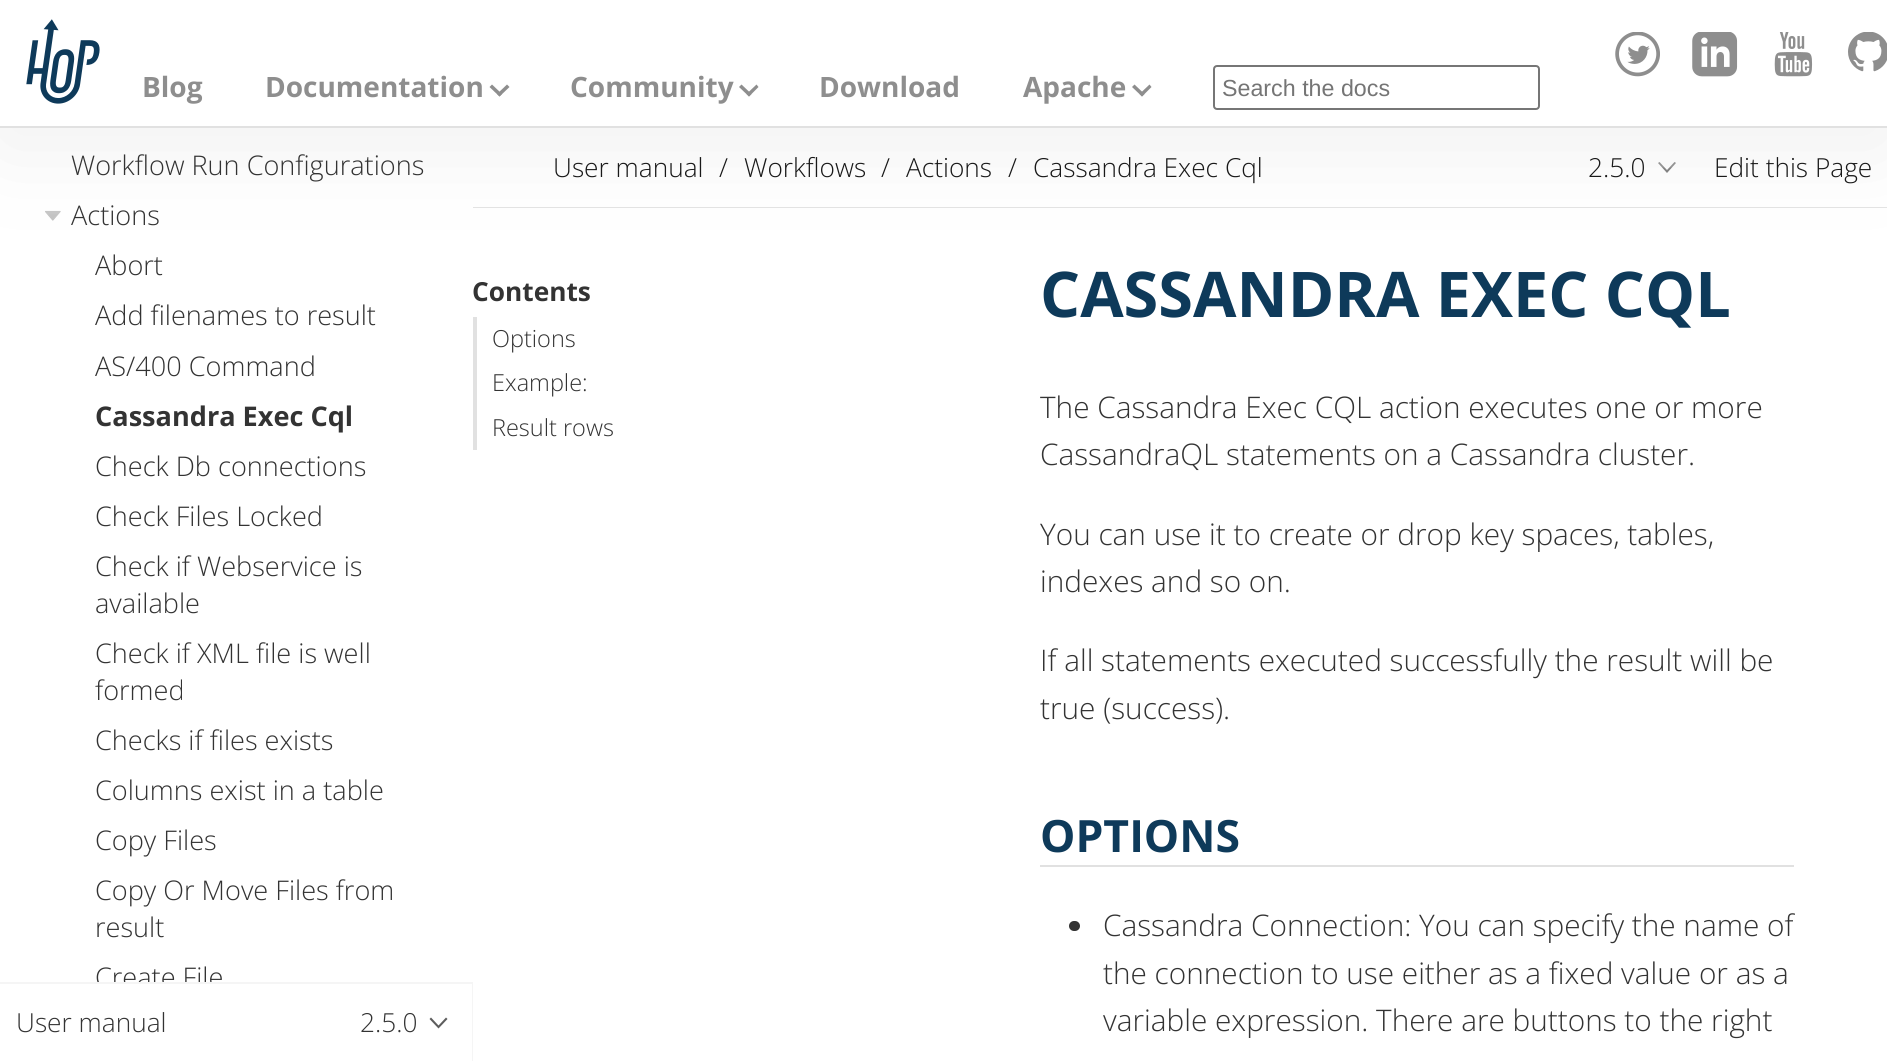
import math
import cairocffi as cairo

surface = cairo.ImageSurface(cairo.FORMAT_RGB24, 1887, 1062)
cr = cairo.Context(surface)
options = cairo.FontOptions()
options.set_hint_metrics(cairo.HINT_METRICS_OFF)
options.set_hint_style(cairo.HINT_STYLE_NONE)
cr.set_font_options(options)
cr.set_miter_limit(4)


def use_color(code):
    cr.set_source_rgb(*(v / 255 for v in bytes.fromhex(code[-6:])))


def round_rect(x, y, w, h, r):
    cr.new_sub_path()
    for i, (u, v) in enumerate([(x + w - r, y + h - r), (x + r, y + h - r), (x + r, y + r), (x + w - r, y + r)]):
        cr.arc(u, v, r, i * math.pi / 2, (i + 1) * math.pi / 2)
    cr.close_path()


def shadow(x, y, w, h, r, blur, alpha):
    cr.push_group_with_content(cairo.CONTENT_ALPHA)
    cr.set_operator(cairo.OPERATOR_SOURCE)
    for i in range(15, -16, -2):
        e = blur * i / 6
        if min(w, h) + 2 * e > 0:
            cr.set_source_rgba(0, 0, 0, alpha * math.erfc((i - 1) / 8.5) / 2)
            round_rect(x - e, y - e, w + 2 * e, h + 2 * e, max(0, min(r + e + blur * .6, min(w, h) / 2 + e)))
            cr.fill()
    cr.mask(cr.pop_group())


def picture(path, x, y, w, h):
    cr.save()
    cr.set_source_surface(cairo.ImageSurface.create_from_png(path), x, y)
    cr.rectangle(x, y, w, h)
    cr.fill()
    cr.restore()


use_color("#ffffff")
cr.paint()
picture("img6.png", 45, 210, 16, 11)
use_color("#e1e1e1")
cr.rectangle(473, 207, 1414, 1)
cr.fill()
use_color("#5d5d5d")
cr.new_path()
cr.move_to(1659.5, 162)
cr.line_to(1658, 163)
cr.line_to(1667, 173)
cr.line_to(1676, 163)
cr.line_to(1674.5, 162)
cr.line_to(1667, 170)
cr.close_path()
cr.fill()
use_color("#f0f0f0")
shadow(0, 16, 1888, 128, 0, 47, 1)
use_color("#ffffff")
cr.rectangle(0, 0, 1887, 126)
cr.fill()
use_color("#e1e1e1")
cr.rectangle(0, 126, 1887, 2)
cr.fill()
picture("img1.png", 26, 19, 74, 85)
picture("img2.png", 1615, 32, 45, 45)
picture("img3.png", 1692, 32, 46, 45)
picture("img4.png", 1774, 32, 39, 45)
picture("img5.png", 1848, 32, 39, 40)
cr.select_font_face("Open Sans", cairo.FONT_SLANT_NORMAL, cairo.FONT_WEIGHT_BOLD)
cr.set_font_size(28)
use_color("#8e8e8e")
cr.move_to(142, 97)
cr.show_text("Blog")
cr.move_to(265, 97)
cr.show_text("Documentation")
cr.new_path()
cr.move_to(497, 94)
cr.line_to(507, 84.5)
cr.line_to(509.5, 87)
cr.line_to(499.5, 96.5)
cr.close_path()
cr.fill()
cr.new_path()
cr.move_to(489.5, 87)
cr.line_to(492, 84.5)
cr.line_to(502, 94)
cr.line_to(499.5, 96.5)
cr.close_path()
cr.fill()
cr.move_to(570, 97)
cr.show_text("Community")
cr.new_path()
cr.move_to(746.5, 94)
cr.line_to(756.5, 84.5)
cr.line_to(758.5, 87)
cr.line_to(749, 96.5)
cr.close_path()
cr.fill()
cr.new_path()
cr.move_to(739, 87)
cr.line_to(741.5, 84.5)
cr.line_to(751.5, 94)
cr.line_to(749, 96.5)
cr.close_path()
cr.fill()
cr.move_to(819, 97)
cr.show_text("Download")
cr.move_to(1023, 97)
cr.show_text("Apache")
cr.new_path()
cr.move_to(1139.5, 94)
cr.line_to(1149.5, 84.5)
cr.line_to(1151.5, 87)
cr.line_to(1142, 96.5)
cr.close_path()
cr.fill()
cr.new_path()
cr.move_to(1132, 87)
cr.line_to(1134.5, 84.5)
cr.line_to(1144.5, 94)
cr.line_to(1142, 96.5)
cr.close_path()
cr.fill()
round_rect(1214, 66, 325, 43, 3)
use_color("#767676")
cr.stroke()
cr.select_font_face("Liberation Sans")
cr.set_font_size(23.25)
use_color("#757575")
cr.move_to(1222, 96)
cr.show_text("Search the docs")
cr.select_font_face("Open Sans Light")
cr.set_font_size(27.1)
use_color("#333333")
cr.move_to(71, 175)
cr.show_text("Workflow Run Configurations")
cr.move_to(71, 225)
cr.show_text("Actions")
cr.move_to(95, 275)
cr.show_text("Abort")
cr.move_to(95, 325)
cr.show_text("Add filenames to result")
cr.move_to(95, 376)
cr.show_text("AS/400 Command")
cr.select_font_face("Open Sans", cairo.FONT_SLANT_NORMAL, cairo.FONT_WEIGHT_BOLD)
cr.move_to(95, 426)
cr.show_text("Cassandra Exec Cql")
cr.select_font_face("Open Sans Light")
cr.move_to(95, 476)
cr.show_text("Check Db connections")
cr.move_to(95, 526)
cr.show_text("Check Files Locked")
cr.move_to(95, 576)
cr.show_text("Check if Webservice is")
cr.move_to(95, 613)
cr.show_text("available")
cr.move_to(95, 663)
cr.show_text("Check if XML file is well")
cr.move_to(95, 700)
cr.show_text("formed")
cr.move_to(95, 750)
cr.show_text("Checks if files exists")
cr.move_to(95, 800)
cr.show_text("Columns exist in a table")
cr.move_to(95, 850)
cr.show_text("Copy Files")
cr.move_to(95, 900)
cr.show_text("Copy Or Move Files from")
cr.move_to(95, 937)
cr.show_text("result")
cr.save()
cr.rectangle(0, 128, 473, 856)
cr.clip()
cr.move_to(95, 987)
cr.show_text("Create File")
cr.restore()
use_color("#f5f5f5")
cr.new_path()
cr.move_to(0, 982)
cr.line_to(0, 984)
cr.line_to(472, 984)
cr.line_to(472, 1061)
cr.line_to(473, 1061)
cr.line_to(473, 982)
cr.close_path()
cr.fill()
cr.set_font_size(26.25)
use_color("#333333")
cr.move_to(16, 1032)
cr.show_text("User manual")
use_color("#5d5d5d")
cr.new_path()
cr.move_to(431, 1017.5)
cr.line_to(429.5, 1019)
cr.line_to(438.5, 1028.5)
cr.line_to(447.5, 1019)
cr.line_to(446, 1017.5)
cr.line_to(438.5, 1025.5)
cr.close_path()
cr.fill()
use_color("#333333")
cr.move_to(360, 1032)
cr.show_text("2.5.0")
use_color("#191919")
cr.move_to(553, 177)
cr.show_text("User manual")
cr.move_to(719, 177)
cr.show_text("/")
cr.move_to(744, 177)
cr.show_text("Workflows")
cr.move_to(881, 177)
cr.show_text("/")
cr.move_to(906, 177)
cr.show_text("Actions")
cr.move_to(1008, 177)
cr.show_text("/")
cr.move_to(1033, 177)
cr.show_text("Cassandra Exec Cql")
cr.move_to(1588, 177)
cr.show_text("2.5.0")
cr.move_to(1714, 177)
cr.show_text("Edit this Page")
cr.select_font_face("Open Sans", cairo.FONT_SLANT_NORMAL, cairo.FONT_WEIGHT_BOLD)
use_color("#333333")
cr.move_to(472, 301)
cr.show_text("Contents")
use_color("#e1e1e1")
cr.rectangle(473, 317, 4, 133)
cr.fill()
cr.select_font_face("Open Sans Light")
cr.set_font_size(23.5)
use_color("#333333")
cr.move_to(492, 347)
cr.show_text("Options")
cr.move_to(492, 391)
cr.show_text("Example:")
cr.move_to(492, 436)
cr.show_text("Result rows")
cr.select_font_face("Open Sans", cairo.FONT_SLANT_NORMAL, cairo.FONT_WEIGHT_BOLD)
cr.set_font_size(63)
use_color("#0e3a5a")
cr.move_to(1040, 317)
cr.show_text("CASSANDRA EXEC CQL")
cr.select_font_face("Open Sans Light")
cr.set_font_size(29.75)
use_color("#333333")
cr.move_to(1040, 418)
cr.show_text("The Cassandra Exec CQL action executes one or more")
cr.move_to(1040, 465)
cr.show_text("CassandraQL statements on a Cassandra cluster.")
cr.move_to(1040, 545)
cr.show_text("You can use it to create or drop key spaces, tables,")
cr.move_to(1040, 592)
cr.show_text("indexes and so on.")
cr.move_to(1040, 671)
cr.show_text("If all statements executed successfully the result will be")
cr.move_to(1040, 719)
cr.show_text("true (success).")
cr.select_font_face("Open Sans", cairo.FONT_SLANT_NORMAL, cairo.FONT_WEIGHT_BOLD)
cr.set_font_size(44.5)
use_color("#0e3a5a")
cr.move_to(1040, 852)
cr.show_text("OPTIONS")
use_color("#e1e1e1")
cr.rectangle(1040, 865, 754, 2)
cr.fill()
use_color("#333333")
round_rect(1069, 921, 11, 10, 5)
cr.fill()
cr.select_font_face("Open Sans Light")
cr.set_font_size(29.75)
cr.move_to(1103, 936)
cr.show_text("Cassandra Connection: You can specify the name of")
cr.move_to(1103, 984)
cr.show_text("the connection to use either as a fixed value or as a")
cr.move_to(1103, 1031)
cr.show_text("variable expression. There are buttons to the right")
surface.write_to_png("result.png")
